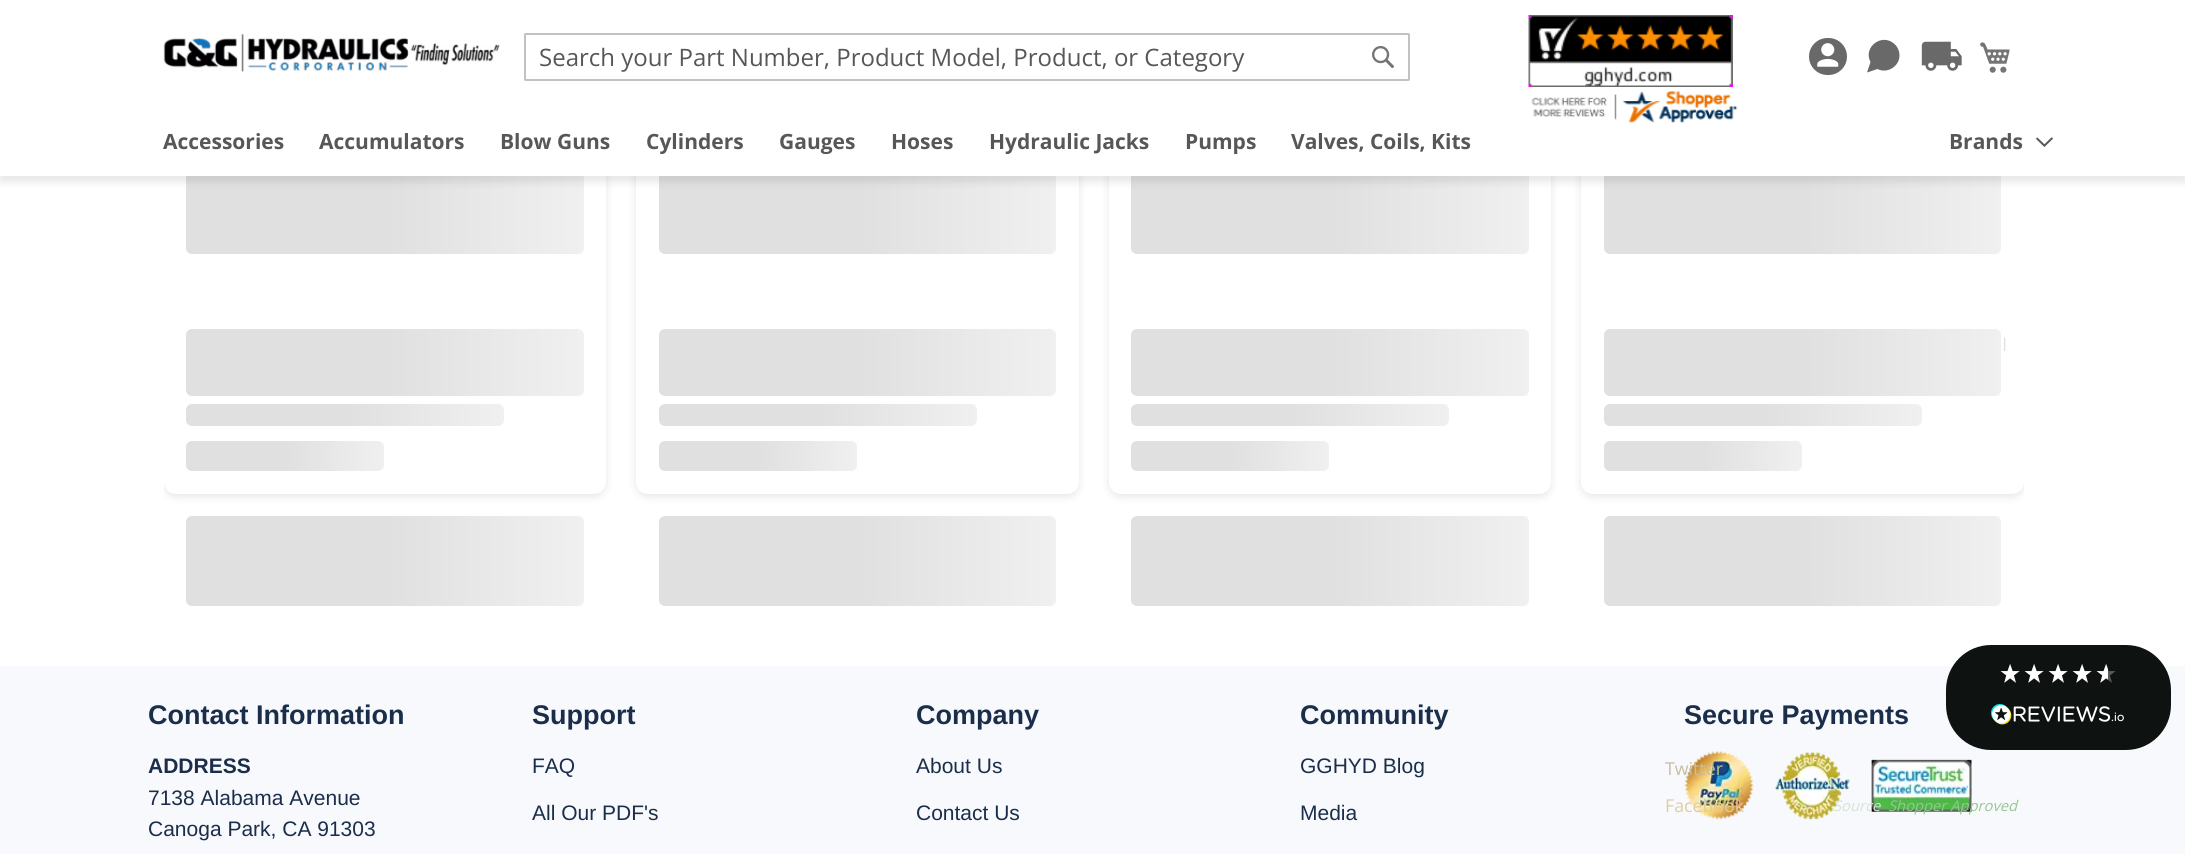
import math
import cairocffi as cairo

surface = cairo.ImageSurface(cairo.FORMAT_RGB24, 2185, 854)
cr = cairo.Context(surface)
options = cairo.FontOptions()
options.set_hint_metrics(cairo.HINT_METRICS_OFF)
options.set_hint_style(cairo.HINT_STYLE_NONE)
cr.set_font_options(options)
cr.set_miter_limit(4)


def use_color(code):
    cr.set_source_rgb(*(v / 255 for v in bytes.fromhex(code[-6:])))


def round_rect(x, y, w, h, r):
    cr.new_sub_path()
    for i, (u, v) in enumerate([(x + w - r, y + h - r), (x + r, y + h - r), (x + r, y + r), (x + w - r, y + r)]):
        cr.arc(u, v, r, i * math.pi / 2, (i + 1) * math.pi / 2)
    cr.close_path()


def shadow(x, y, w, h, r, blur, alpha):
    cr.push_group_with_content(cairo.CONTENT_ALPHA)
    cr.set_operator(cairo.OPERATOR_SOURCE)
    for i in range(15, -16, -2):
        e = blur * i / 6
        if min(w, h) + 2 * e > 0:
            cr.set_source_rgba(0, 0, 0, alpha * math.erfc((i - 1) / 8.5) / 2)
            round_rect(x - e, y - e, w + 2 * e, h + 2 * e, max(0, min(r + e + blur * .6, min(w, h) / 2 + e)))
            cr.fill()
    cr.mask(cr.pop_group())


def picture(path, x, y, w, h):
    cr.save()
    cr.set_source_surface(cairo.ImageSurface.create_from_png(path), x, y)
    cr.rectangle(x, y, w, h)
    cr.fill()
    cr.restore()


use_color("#ffffff")
cr.paint()
cr.save()
cr.rectangle(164, 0, 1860, 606)
cr.clip()
use_color("#000000")
shadow(164, -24, 442, 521, 12, 4, 0.1)
cr.restore()
use_color("#ffffff")
round_rect(164, -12, 442, 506, 12)
cr.fill()
gradient = cairo.LinearGradient(186, 66, 981, 66)
gradient.add_color_stop_rgba(0.25, 0.878, 0.878, 0.878, 1)
gradient.add_color_stop_rgba(0.5, 0.941, 0.941, 0.941, 1)
gradient.add_color_stop_rgba(0.75, 0.878, 0.878, 0.878, 1)
cr.set_source(gradient)
round_rect(186, -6, 398, 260, 6)
cr.fill()
gradient = cairo.LinearGradient(186, 362, 981, 362)
gradient.add_color_stop_rgba(0.25, 0.878, 0.878, 0.878, 1)
gradient.add_color_stop_rgba(0.5, 0.941, 0.941, 0.941, 1)
gradient.add_color_stop_rgba(0.75, 0.878, 0.878, 0.878, 1)
cr.set_source(gradient)
round_rect(186, 329, 398, 67, 6)
cr.fill()
gradient = cairo.LinearGradient(186, 415, 822, 415)
gradient.add_color_stop_rgba(0.25, 0.878, 0.878, 0.878, 1)
gradient.add_color_stop_rgba(0.5, 0.941, 0.941, 0.941, 1)
gradient.add_color_stop_rgba(0.75, 0.878, 0.878, 0.878, 1)
cr.set_source(gradient)
round_rect(186, 404, 318, 22, 6)
cr.fill()
gradient = cairo.LinearGradient(186, 456, 582, 456)
gradient.add_color_stop_rgba(0.25, 0.878, 0.878, 0.878, 1)
gradient.add_color_stop_rgba(0.5, 0.941, 0.941, 0.941, 1)
gradient.add_color_stop_rgba(0.75, 0.878, 0.878, 0.878, 1)
cr.set_source(gradient)
round_rect(186, 441, 198, 30, 6)
cr.fill()
gradient = cairo.LinearGradient(186, 561, 981, 561)
gradient.add_color_stop_rgba(0.25, 0.878, 0.878, 0.878, 1)
gradient.add_color_stop_rgba(0.5, 0.941, 0.941, 0.941, 1)
gradient.add_color_stop_rgba(0.75, 0.878, 0.878, 0.878, 1)
cr.set_source(gradient)
round_rect(186, 516, 398, 90, 6)
cr.fill()
use_color("#000000")
shadow(636, -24, 443, 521, 12, 4, 0.1)
use_color("#ffffff")
round_rect(636, -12, 443, 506, 12)
cr.fill()
gradient = cairo.LinearGradient(659, 66, 1454, 66)
gradient.add_color_stop_rgba(0.25, 0.878, 0.878, 0.878, 1)
gradient.add_color_stop_rgba(0.5, 0.941, 0.941, 0.941, 1)
gradient.add_color_stop_rgba(0.75, 0.878, 0.878, 0.878, 1)
cr.set_source(gradient)
round_rect(659, -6, 397, 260, 6)
cr.fill()
gradient = cairo.LinearGradient(659, 362, 1454, 362)
gradient.add_color_stop_rgba(0.25, 0.878, 0.878, 0.878, 1)
gradient.add_color_stop_rgba(0.5, 0.941, 0.941, 0.941, 1)
gradient.add_color_stop_rgba(0.75, 0.878, 0.878, 0.878, 1)
cr.set_source(gradient)
round_rect(659, 329, 397, 67, 6)
cr.fill()
gradient = cairo.LinearGradient(659, 415, 1295, 415)
gradient.add_color_stop_rgba(0.25, 0.878, 0.878, 0.878, 1)
gradient.add_color_stop_rgba(0.5, 0.941, 0.941, 0.941, 1)
gradient.add_color_stop_rgba(0.75, 0.878, 0.878, 0.878, 1)
cr.set_source(gradient)
round_rect(659, 404, 318, 22, 6)
cr.fill()
gradient = cairo.LinearGradient(659, 456, 1055, 456)
gradient.add_color_stop_rgba(0.25, 0.878, 0.878, 0.878, 1)
gradient.add_color_stop_rgba(0.5, 0.941, 0.941, 0.941, 1)
gradient.add_color_stop_rgba(0.75, 0.878, 0.878, 0.878, 1)
cr.set_source(gradient)
round_rect(659, 441, 198, 30, 6)
cr.fill()
gradient = cairo.LinearGradient(659, 561, 1454, 561)
gradient.add_color_stop_rgba(0.25, 0.878, 0.878, 0.878, 1)
gradient.add_color_stop_rgba(0.5, 0.941, 0.941, 0.941, 1)
gradient.add_color_stop_rgba(0.75, 0.878, 0.878, 0.878, 1)
cr.set_source(gradient)
round_rect(659, 516, 397, 90, 6)
cr.fill()
use_color("#000000")
shadow(1109, -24, 442, 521, 12, 4, 0.1)
use_color("#ffffff")
round_rect(1109, -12, 442, 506, 12)
cr.fill()
gradient = cairo.LinearGradient(1131, 66, 1926, 66)
gradient.add_color_stop_rgba(0.25, 0.878, 0.878, 0.878, 1)
gradient.add_color_stop_rgba(0.5, 0.941, 0.941, 0.941, 1)
gradient.add_color_stop_rgba(0.75, 0.878, 0.878, 0.878, 1)
cr.set_source(gradient)
round_rect(1131, -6, 398, 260, 6)
cr.fill()
gradient = cairo.LinearGradient(1131, 362, 1926, 362)
gradient.add_color_stop_rgba(0.25, 0.878, 0.878, 0.878, 1)
gradient.add_color_stop_rgba(0.5, 0.941, 0.941, 0.941, 1)
gradient.add_color_stop_rgba(0.75, 0.878, 0.878, 0.878, 1)
cr.set_source(gradient)
round_rect(1131, 329, 398, 67, 6)
cr.fill()
gradient = cairo.LinearGradient(1131, 415, 1767, 415)
gradient.add_color_stop_rgba(0.25, 0.878, 0.878, 0.878, 1)
gradient.add_color_stop_rgba(0.5, 0.941, 0.941, 0.941, 1)
gradient.add_color_stop_rgba(0.75, 0.878, 0.878, 0.878, 1)
cr.set_source(gradient)
round_rect(1131, 404, 318, 22, 6)
cr.fill()
gradient = cairo.LinearGradient(1131, 456, 1527, 456)
gradient.add_color_stop_rgba(0.25, 0.878, 0.878, 0.878, 1)
gradient.add_color_stop_rgba(0.5, 0.941, 0.941, 0.941, 1)
gradient.add_color_stop_rgba(0.75, 0.878, 0.878, 0.878, 1)
cr.set_source(gradient)
round_rect(1131, 441, 198, 30, 6)
cr.fill()
gradient = cairo.LinearGradient(1131, 561, 1926, 561)
gradient.add_color_stop_rgba(0.25, 0.878, 0.878, 0.878, 1)
gradient.add_color_stop_rgba(0.5, 0.941, 0.941, 0.941, 1)
gradient.add_color_stop_rgba(0.75, 0.878, 0.878, 0.878, 1)
cr.set_source(gradient)
round_rect(1131, 516, 398, 90, 6)
cr.fill()
cr.save()
cr.rectangle(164, 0, 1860, 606)
cr.clip()
use_color("#000000")
shadow(1581, -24, 443, 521, 12, 4, 0.1)
cr.restore()
use_color("#ffffff")
round_rect(1581, -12, 443, 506, 12)
cr.fill()
gradient = cairo.LinearGradient(1604, 66, 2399, 66)
gradient.add_color_stop_rgba(0.25, 0.878, 0.878, 0.878, 1)
gradient.add_color_stop_rgba(0.5, 0.941, 0.941, 0.941, 1)
gradient.add_color_stop_rgba(0.75, 0.878, 0.878, 0.878, 1)
cr.set_source(gradient)
round_rect(1604, -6, 397, 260, 6)
cr.fill()
gradient = cairo.LinearGradient(1604, 362, 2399, 362)
gradient.add_color_stop_rgba(0.25, 0.878, 0.878, 0.878, 1)
gradient.add_color_stop_rgba(0.5, 0.941, 0.941, 0.941, 1)
gradient.add_color_stop_rgba(0.75, 0.878, 0.878, 0.878, 1)
cr.set_source(gradient)
round_rect(1604, 329, 397, 67, 6)
cr.fill()
gradient = cairo.LinearGradient(1604, 415, 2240, 415)
gradient.add_color_stop_rgba(0.25, 0.878, 0.878, 0.878, 1)
gradient.add_color_stop_rgba(0.5, 0.941, 0.941, 0.941, 1)
gradient.add_color_stop_rgba(0.75, 0.878, 0.878, 0.878, 1)
cr.set_source(gradient)
round_rect(1604, 404, 318, 22, 6)
cr.fill()
gradient = cairo.LinearGradient(1604, 456, 2000, 456)
gradient.add_color_stop_rgba(0.25, 0.878, 0.878, 0.878, 1)
gradient.add_color_stop_rgba(0.5, 0.941, 0.941, 0.941, 1)
gradient.add_color_stop_rgba(0.75, 0.878, 0.878, 0.878, 1)
cr.set_source(gradient)
round_rect(1604, 441, 198, 30, 6)
cr.fill()
gradient = cairo.LinearGradient(1604, 561, 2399, 561)
gradient.add_color_stop_rgba(0.25, 0.878, 0.878, 0.878, 1)
gradient.add_color_stop_rgba(0.5, 0.941, 0.941, 0.941, 1)
gradient.add_color_stop_rgba(0.75, 0.878, 0.878, 0.878, 1)
cr.set_source(gradient)
round_rect(1604, 516, 397, 90, 6)
cr.fill()
use_color("#000000")
shadow(0, 111, 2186, 71, 0, 4.5, 0.1)
use_color("#ffffff")
cr.rectangle(0, 0, 2185, 176)
cr.fill()
picture("img1.png", 163, 34, 337, 38)
round_rect(525, 34, 884, 46, 0.5)
use_color("#c2c2c2")
cr.stroke()
cr.select_font_face("Open Sans")
cr.set_font_size(24)
use_color("#575757")
cr.move_to(539, 66)
cr.show_text("Search your Part Number, Product Model, Product, or Category")
picture("img2.png", 1372, 46, 22, 22)
picture("img3.png", 1528, 15, 205, 72)
picture("img4.png", 1531, 91, 207, 32)
use_color("#696969")
round_rect(1809, 38, 38, 37, 18.5)
cr.fill()
picture("img5.png", 1817, 43, 22, 24)
cr.new_path()
cr.move_to(1899.5, 55.5)
cr.curve_to(1899.5, 66.5, 1887, 74, 1877.5, 69)
cr.line_to(1867, 72.5)
cr.line_to(1870.5, 62)
cr.curve_to(1862.5, 47, 1882.5, 32, 1895, 44.5)
cr.curve_to(1898, 47.5, 1899.5, 51.5, 1899.5, 55.5)
cr.close_path()
cr.fill()
picture("img6.png", 1921, 41, 41, 30)
picture("img7.png", 1980, 42, 30, 31)
cr.select_font_face("Open Sans", cairo.FONT_SLANT_NORMAL, cairo.FONT_WEIGHT_BOLD)
cr.set_font_size(21)
use_color("#575757")
cr.move_to(163, 149)
cr.show_text("Accessories")
cr.move_to(319, 149)
cr.show_text("Accumulators")
cr.move_to(500, 149)
cr.show_text("Blow Guns")
cr.move_to(646, 149)
cr.show_text("Cylinders")
cr.move_to(779, 149)
cr.show_text("Gauges")
cr.move_to(891, 149)
cr.show_text("Hoses")
cr.move_to(989, 149)
cr.show_text("Hydraulic Jacks")
cr.move_to(1185, 149)
cr.show_text("Pumps")
cr.move_to(1291, 149)
cr.show_text("Valves, Coils, Kits")
cr.move_to(1949, 149)
cr.show_text("Brands")
picture("img8.png", 2036, 137, 17, 10)
use_color("#f8f9fc")
cr.rectangle(0, 666, 2185, 188)
cr.fill()
cr.select_font_face("Liberation Sans", cairo.FONT_SLANT_NORMAL, cairo.FONT_WEIGHT_BOLD)
cr.set_font_size(27)
use_color("#1a2e4b")
cr.move_to(148, 724)
cr.show_text("Contact Information")
cr.set_font_size(21)
cr.move_to(148, 773)
cr.show_text("ADDRESS")
cr.select_font_face("Liberation Sans")
cr.move_to(148, 805)
cr.show_text("7138 Alabama Avenue")
cr.move_to(148, 836)
cr.show_text("Canoga Park, CA 91303")
cr.select_font_face("Liberation Sans", cairo.FONT_SLANT_NORMAL, cairo.FONT_WEIGHT_BOLD)
cr.set_font_size(27)
cr.move_to(532, 724)
cr.show_text("Support")
cr.select_font_face("Liberation Sans")
cr.set_font_size(21)
cr.move_to(532, 773)
cr.show_text("FAQ")
cr.move_to(532, 820)
cr.show_text("All Our PDF's")
cr.select_font_face("Liberation Sans", cairo.FONT_SLANT_NORMAL, cairo.FONT_WEIGHT_BOLD)
cr.set_font_size(27)
cr.move_to(916, 724)
cr.show_text("Company")
cr.select_font_face("Liberation Sans")
cr.set_font_size(21)
cr.move_to(916, 773)
cr.show_text("About Us")
cr.move_to(916, 820)
cr.show_text("Contact Us")
cr.select_font_face("Liberation Sans", cairo.FONT_SLANT_NORMAL, cairo.FONT_WEIGHT_BOLD)
cr.set_font_size(27)
cr.move_to(1300, 724)
cr.show_text("Community")
cr.select_font_face("Liberation Sans")
cr.set_font_size(21)
cr.move_to(1300, 773)
cr.show_text("GGHYD Blog")
cr.move_to(1300, 820)
cr.show_text("Media")
cr.select_font_face("Liberation Sans", cairo.FONT_SLANT_NORMAL, cairo.FONT_WEIGHT_BOLD)
cr.set_font_size(27)
cr.move_to(1684, 724)
cr.show_text("Secure Payments")
picture("img9.png", 1684, 751, 70, 69)
picture("img10.png", 1774, 752, 76, 68)
picture("img11.png", 1871, 759, 101, 53)
cr.select_font_face("Open Sans")
cr.set_font_size(19)
use_color("#e4e4e4")
cr.move_to(2002, 351)
cr.show_text("I")
cr.set_font_size(17.75)
use_color("#c8bda1")
cr.move_to(1665, 775)
cr.show_text("Twitter")
use_color("#e0cca1")
cr.move_to(1665, 812)
cr.show_text("Facebook")
cr.select_font_face("Open Sans", cairo.FONT_SLANT_ITALIC)
cr.set_font_size(14.75)
use_color("#d5e1d5")
cr.move_to(1833, 811)
cr.show_text("Source")
use_color("#95c693")
cr.move_to(1888, 811)
cr.show_text("Shopper Approved")
use_color("#0e1311")
round_rect(1946, 645, 225, 105, 45)
cr.fill()
picture("img12.png", 2000, 664, 20, 19)
picture("img12.png", 2024, 664, 20, 19)
picture("img12.png", 2048, 664, 20, 19)
picture("img12.png", 2072, 664, 20, 19)
picture("img13.png", 2096, 664, 20, 19)
picture("img14.png", 1991, 704, 133, 21)
surface.write_to_png("result.png")
